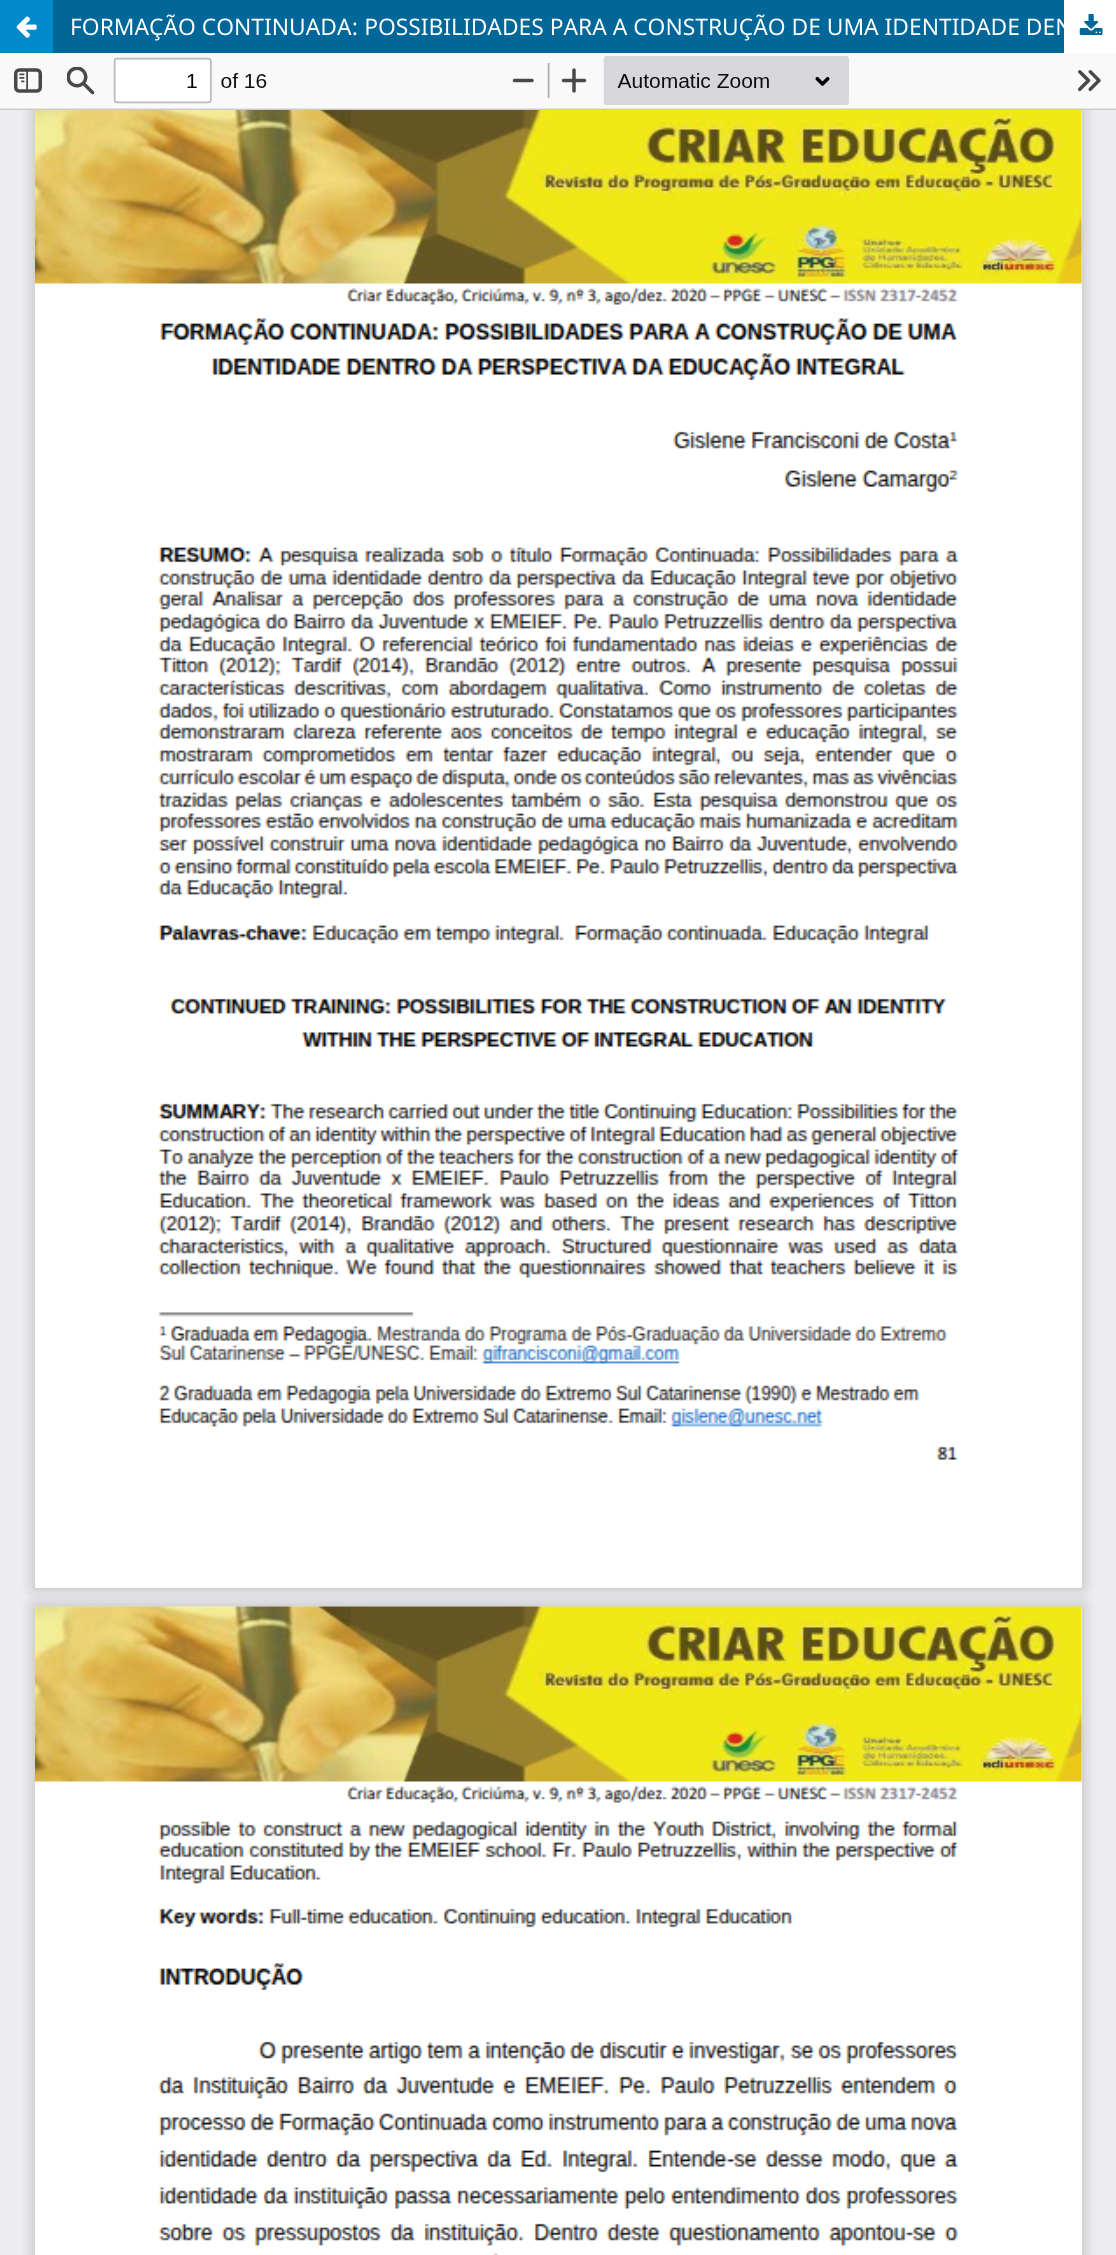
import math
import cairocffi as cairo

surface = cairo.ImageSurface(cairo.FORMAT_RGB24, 1116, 2255)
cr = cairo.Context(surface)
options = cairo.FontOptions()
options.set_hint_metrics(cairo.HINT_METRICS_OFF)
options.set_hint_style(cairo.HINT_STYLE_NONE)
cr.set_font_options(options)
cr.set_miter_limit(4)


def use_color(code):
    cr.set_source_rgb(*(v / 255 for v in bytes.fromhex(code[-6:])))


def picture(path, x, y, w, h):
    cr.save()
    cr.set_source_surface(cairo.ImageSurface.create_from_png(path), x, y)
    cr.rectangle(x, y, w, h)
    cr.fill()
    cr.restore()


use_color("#ffffff")
cr.paint()
use_color("#006798")
cr.rectangle(53, 0, 1011, 53)
cr.fill()
use_color("#008acb")
cr.rectangle(0, 0, 53, 53)
cr.fill()
picture("img1.png", 16, 16, 21, 22)
cr.select_font_face("Noto Sans")
cr.set_font_size(22.8)
use_color("#ffffff")
cr.move_to(70, 35)
cr.show_text("FORMAÇÃO CONTINUADA: POSSIBILIDADES PARA A CONSTRUÇÃO DE UMA IDENTIDADE DEN")
picture("img2.png", 1079, 14, 24, 21)
picture("img3.png", 0, 53, 1116, 2202)
surface.write_to_png("result.png")
